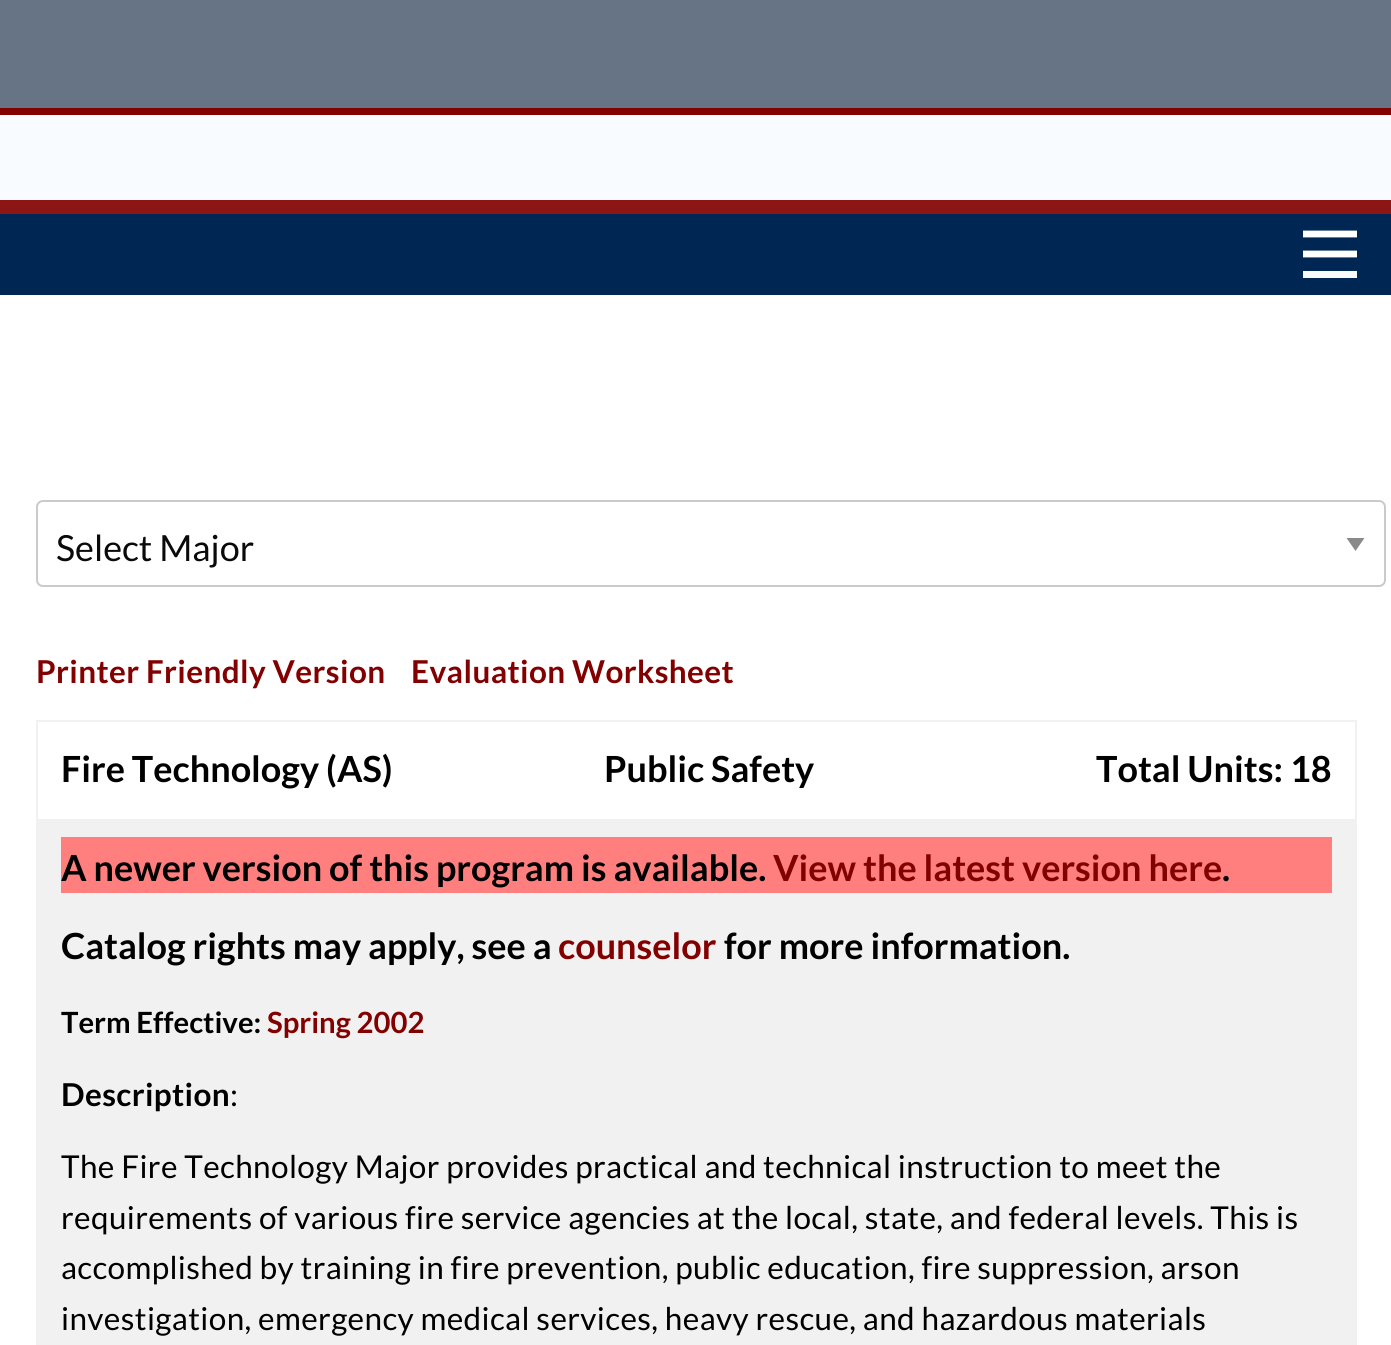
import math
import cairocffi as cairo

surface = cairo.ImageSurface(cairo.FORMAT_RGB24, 1391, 1345)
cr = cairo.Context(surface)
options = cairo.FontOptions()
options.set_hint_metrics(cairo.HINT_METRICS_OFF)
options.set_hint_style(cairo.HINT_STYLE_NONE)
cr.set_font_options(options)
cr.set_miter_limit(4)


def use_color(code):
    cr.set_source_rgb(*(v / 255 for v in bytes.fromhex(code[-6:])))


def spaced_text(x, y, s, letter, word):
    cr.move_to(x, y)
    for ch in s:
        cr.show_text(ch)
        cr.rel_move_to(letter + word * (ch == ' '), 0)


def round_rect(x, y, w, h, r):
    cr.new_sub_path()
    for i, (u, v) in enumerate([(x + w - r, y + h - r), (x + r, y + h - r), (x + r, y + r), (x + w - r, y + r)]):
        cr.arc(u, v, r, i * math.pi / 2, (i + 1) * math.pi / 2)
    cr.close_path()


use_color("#ffffff")
cr.paint()
use_color("#f8fbff")
cr.rectangle(0, 115, 1391, 85)
cr.fill()
use_color("#667485")
cr.rectangle(0, 0, 1391, 108)
cr.fill()
use_color("#820000")
cr.rectangle(0, 108, 1391, 7)
cr.fill()
use_color("#002654")
cr.rectangle(0, 214, 1391, 81)
cr.fill()
use_color("#8c1515")
cr.rectangle(0, 200, 1391, 14)
cr.fill()
cr.new_path()
cr.move_to(1303, 234)
cr.line_to(1357, 234)
cr.move_to(1303, 254)
cr.line_to(1357, 254)
use_color("#ffffff")
cr.set_line_width(6.8)
cr.stroke()
use_color("#f8f9fa")
cr.rectangle(1303, 271, 54, 7)
cr.fill()
use_color("#8a8a8a")
cr.new_path()
cr.move_to(1346.5, 538)
cr.line_to(1364.5, 538)
cr.line_to(1355.5, 551)
cr.close_path()
cr.fill()
round_rect(37, 501, 1348, 85, 6)
use_color("#cacaca")
cr.set_line_width(2)
cr.stroke()
cr.select_font_face("Lato")
cr.set_font_size(36)
use_color("#0a0a0a")
cr.move_to(56, 561)
cr.show_text("Select Major")
cr.select_font_face("Lato", cairo.FONT_SLANT_NORMAL, cairo.FONT_WEIGHT_BOLD)
cr.set_font_size(31.5)
use_color("#820000")
spaced_text(36, 683, "Printer Friendly Version", 0.38, 0)
spaced_text(411, 683, "Evaluation Worksheet", 0.38, 0)
use_color("#f1f1f1")
cr.rectangle(36, 720, 1321, 2)
cr.fill()
cr.rectangle(1355, 720, 2, 625)
cr.fill()
cr.rectangle(36, 720, 2, 625)
cr.fill()
cr.set_font_size(36)
use_color("#000000")
cr.move_to(61, 782)
cr.show_text("Fire Technology (AS)")
cr.move_to(604, 782)
cr.show_text("Public Safety")
cr.move_to(1096, 782)
cr.show_text("Total Units: 18")
use_color("#f1f1f1")
cr.rectangle(38, 819, 1317, 526)
cr.fill()
use_color("#ff7f7f")
cr.rectangle(61, 837, 1271, 56)
cr.fill()
use_color("#000000")
cr.move_to(61, 881)
cr.show_text("A newer version of this program is available.")
use_color("#820000")
cr.move_to(773, 881)
cr.show_text("View the latest version here")
use_color("#000000")
cr.move_to(1222, 881)
cr.show_text(".")
cr.move_to(61, 959)
cr.show_text("Catalog rights may apply, see a")
use_color("#820000")
cr.move_to(558, 959)
cr.show_text("counselor")
use_color("#000000")
cr.move_to(724, 959)
cr.show_text("for more information.")
cr.set_font_size(29.25)
cr.move_to(61, 1033)
cr.show_text("Term Effective:")
use_color("#820000")
cr.move_to(267, 1033)
cr.show_text("Spring 2002")
cr.set_font_size(31.5)
use_color("#000000")
spaced_text(61, 1106, "Description", 0.38, 0)
cr.select_font_face("Lato")
spaced_text(230, 1106, ":", 0.38, 0)
spaced_text(61, 1178, "The Fire Technology Major provides practical and technical instruction to meet the", 0.38, 0)
spaced_text(61, 1229, "requirements of various fire service agencies at the local, state, and federal levels. This is", 0.38, 0)
spaced_text(61, 1279, "accomplished by training in fire prevention, public education, fire suppression, arson", 0.38, 0)
spaced_text(61, 1330, "investigation, emergency medical services, heavy rescue, and hazardous materials", 0.38, 0)
surface.write_to_png("result.png")
